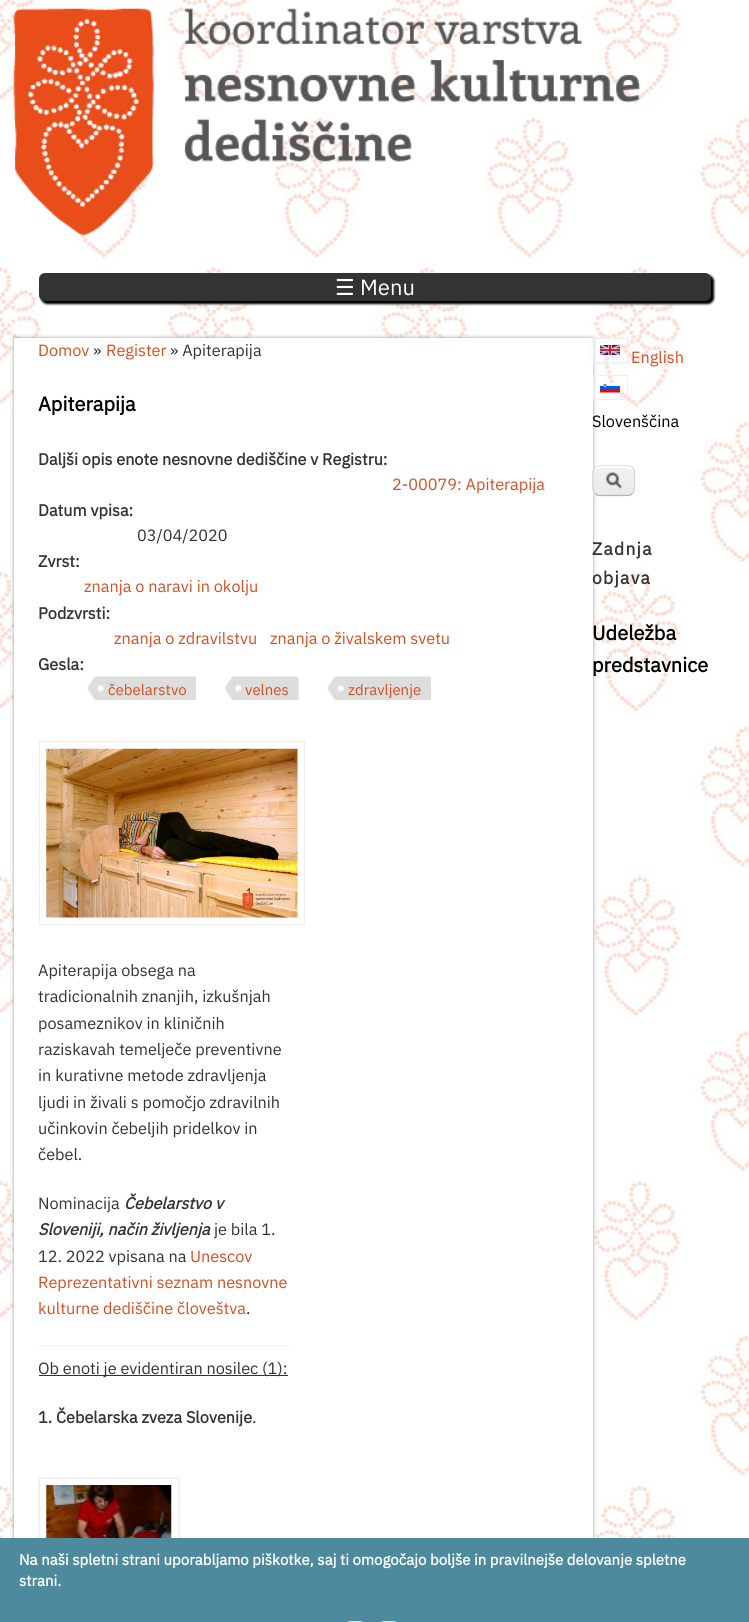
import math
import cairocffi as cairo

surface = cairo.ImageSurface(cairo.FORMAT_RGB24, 749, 1622)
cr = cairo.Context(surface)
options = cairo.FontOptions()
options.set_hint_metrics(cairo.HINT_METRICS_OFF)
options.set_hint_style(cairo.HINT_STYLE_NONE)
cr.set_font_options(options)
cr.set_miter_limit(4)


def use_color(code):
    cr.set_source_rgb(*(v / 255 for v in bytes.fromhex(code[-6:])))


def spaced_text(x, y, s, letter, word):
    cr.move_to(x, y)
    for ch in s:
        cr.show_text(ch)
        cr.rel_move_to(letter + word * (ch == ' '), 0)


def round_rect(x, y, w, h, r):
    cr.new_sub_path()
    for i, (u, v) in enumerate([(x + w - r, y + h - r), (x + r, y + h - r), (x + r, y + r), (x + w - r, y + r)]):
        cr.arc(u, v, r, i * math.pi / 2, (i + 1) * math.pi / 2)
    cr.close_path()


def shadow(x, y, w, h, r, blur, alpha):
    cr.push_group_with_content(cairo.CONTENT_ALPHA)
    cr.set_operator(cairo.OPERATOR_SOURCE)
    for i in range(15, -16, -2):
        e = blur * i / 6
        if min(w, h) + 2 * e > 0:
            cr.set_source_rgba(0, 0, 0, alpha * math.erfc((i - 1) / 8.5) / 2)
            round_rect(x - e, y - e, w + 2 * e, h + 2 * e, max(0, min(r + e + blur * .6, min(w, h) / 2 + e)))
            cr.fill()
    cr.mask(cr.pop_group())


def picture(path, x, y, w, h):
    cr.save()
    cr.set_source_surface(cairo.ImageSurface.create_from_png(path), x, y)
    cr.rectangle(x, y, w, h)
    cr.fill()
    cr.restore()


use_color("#ffffff")
cr.paint()
picture("img1.png", 0, 0, 749, 1538)
picture("img2.png", 13, 8, 628, 228)
use_color("#000000")
shadow(41, 275, 673, 29, 6, 1, 1)
use_color("#333333")
round_rect(39, 273, 672, 28, 6)
cr.fill()
cr.select_font_face("DejaVu Sans")
cr.set_font_size(22)
use_color("#ffffff")
cr.move_to(335, 295)
cr.show_text("☰")
cr.select_font_face("IBM Plex Sans")
cr.move_to(360, 295)
cr.show_text("Menu")
use_color("#999999")
shadow(14, 338, 579, 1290, 0, 2, 1)
use_color("#ffffff")
cr.rectangle(14, 338, 579, 1200)
cr.fill()
cr.set_font_size(16.25)
use_color("#d54e21")
cr.move_to(38, 356)
cr.show_text("Domov")
use_color("#333333")
cr.move_to(93, 356)
cr.show_text("»")
use_color("#d54e21")
cr.move_to(106, 356)
cr.show_text("Register")
use_color("#333333")
cr.move_to(170, 356)
cr.show_text("» Apiterapija")
cr.select_font_face("IBM Plex Sans", cairo.FONT_SLANT_NORMAL, cairo.FONT_WEIGHT_BOLD)
cr.set_font_size(20)
use_color("#000000")
cr.move_to(38, 411)
cr.show_text("Apiterapija")
cr.set_font_size(16.25)
use_color("#333333")
cr.move_to(38, 465)
cr.show_text("Daljši opis enote nesnovne dediščine v Registru:")
cr.select_font_face("IBM Plex Sans")
use_color("#d54e21")
cr.move_to(392, 490)
cr.show_text("2-00079: Apiterapija")
cr.select_font_face("IBM Plex Sans", cairo.FONT_SLANT_NORMAL, cairo.FONT_WEIGHT_BOLD)
use_color("#333333")
cr.move_to(38, 516)
cr.show_text("Datum vpisa:")
cr.select_font_face("IBM Plex Sans")
cr.move_to(137, 541)
cr.show_text("03/04/2020")
cr.select_font_face("IBM Plex Sans", cairo.FONT_SLANT_NORMAL, cairo.FONT_WEIGHT_BOLD)
cr.move_to(38, 567)
cr.show_text("Zvrst:")
cr.select_font_face("IBM Plex Sans")
use_color("#d54e21")
cr.move_to(84, 592)
cr.show_text("znanja o naravi in okolju")
cr.select_font_face("IBM Plex Sans", cairo.FONT_SLANT_NORMAL, cairo.FONT_WEIGHT_BOLD)
use_color("#333333")
cr.move_to(38, 619)
cr.show_text("Podzvrsti:")
cr.select_font_face("IBM Plex Sans")
use_color("#d54e21")
cr.move_to(114, 644)
cr.show_text("znanja o zdravilstvu")
cr.move_to(270, 644)
cr.show_text("znanja o živalskem svetu")
cr.select_font_face("IBM Plex Sans", cairo.FONT_SLANT_NORMAL, cairo.FONT_WEIGHT_BOLD)
use_color("#333333")
cr.move_to(38, 670)
cr.show_text("Gesla:")
picture("img3.png", 87, 676, 109, 24)
cr.select_font_face("IBM Plex Sans")
cr.set_font_size(15)
use_color("#d54e21")
cr.move_to(108, 695)
cr.show_text("čebelarstvo")
picture("img4.png", 225, 676, 74, 24)
cr.move_to(245, 695)
cr.show_text("velnes")
picture("img5.png", 327, 676, 104, 24)
cr.move_to(348, 695)
cr.show_text("zdravljenje")
cr.rectangle(39.5, 741.5, 265, 183)
use_color("#eeeeee")
cr.set_line_width(1)
cr.stroke()
picture("img6.png", 46, 748, 252, 170)
cr.set_font_size(16.25)
use_color("#333333")
cr.move_to(38, 976)
cr.show_text("Apiterapija obsega na")
cr.move_to(38, 1002)
cr.show_text("tradicionalnih znanjih, izkušnjah")
cr.move_to(38, 1029)
cr.show_text("posameznikov in kliničnih")
cr.move_to(38, 1055)
cr.show_text("raziskavah temelječe preventivne")
cr.move_to(38, 1081)
cr.show_text("in kurativne metode zdravljenja")
cr.move_to(38, 1108)
cr.show_text("ljudi in živali s pomočjo zdravilnih")
cr.move_to(38, 1134)
cr.show_text("učinkovin čebeljih pridelkov in")
cr.move_to(38, 1160)
cr.show_text("čebel.")
cr.move_to(38, 1209)
cr.show_text("Nominacija")
cr.select_font_face("IBM Plex Sans", cairo.FONT_SLANT_ITALIC, cairo.FONT_WEIGHT_BOLD)
cr.move_to(124, 1209)
cr.show_text("Čebelarstvo v")
cr.move_to(38, 1235)
cr.show_text("Sloveniji, način življenja")
cr.select_font_face("IBM Plex Sans")
cr.move_to(214, 1235)
cr.show_text("je bila 1.")
cr.move_to(38, 1262)
cr.show_text("12. 2022 vpisana na")
use_color("#d54e21")
cr.move_to(190, 1262)
cr.show_text("Unescov")
cr.move_to(38, 1288)
cr.show_text("Reprezentativni seznam nesnovne")
cr.move_to(38, 1314)
cr.show_text("kulturne dediščine človeštva")
use_color("#333333")
cr.move_to(246, 1314)
cr.show_text(".")
use_color("#eeeeee")
cr.rectangle(39, 1345, 251, 1)
cr.fill()
use_color("#333333")
cr.rectangle(39, 1375, 249, 1)
cr.fill()
cr.move_to(38, 1374)
cr.show_text("Ob enoti je evidentiran nosilec (1):")
cr.select_font_face("IBM Plex Sans", cairo.FONT_SLANT_NORMAL, cairo.FONT_WEIGHT_BOLD)
cr.move_to(38, 1423)
cr.show_text("1. Čebelarska zveza Slovenije")
cr.select_font_face("IBM Plex Sans")
cr.move_to(252, 1423)
cr.show_text(".")
cr.save()
cr.set_fill_rule(cairo.FILL_RULE_EVEN_ODD)
cr.new_path()
cr.move_to(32, 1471)
cr.line_to(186, 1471)
cr.line_to(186, 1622)
cr.line_to(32, 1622)
cr.close_path()
cr.move_to(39, 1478)
cr.line_to(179, 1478)
cr.line_to(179, 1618)
cr.line_to(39, 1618)
cr.close_path()
cr.clip()
use_color("#eeeeee")
shadow(39, 1478, 140, 140, 0, 2, 1)
cr.restore()
cr.rectangle(39.5, 1478.5, 139, 139)
use_color("#eeeeee")
cr.stroke()
picture("img7.png", 46, 1485, 126, 53)
cr.save()
cr.set_fill_rule(cairo.FILL_RULE_EVEN_ODD)
cr.new_path()
cr.move_to(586, 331)
cr.line_to(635, 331)
cr.line_to(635, 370)
cr.line_to(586, 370)
cr.close_path()
cr.move_to(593, 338)
cr.line_to(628, 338)
cr.line_to(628, 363)
cr.line_to(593, 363)
cr.close_path()
cr.clip()
use_color("#eeeeee")
shadow(593, 338, 35, 25, 0, 2, 1)
cr.restore()
cr.rectangle(593.5, 338.5, 34, 24)
cr.stroke()
picture("img8.png", 600, 345, 20, 10)
use_color("#d54e21")
cr.move_to(631, 363)
cr.show_text("English")
cr.rectangle(593.5, 375.5, 34, 24)
use_color("#eeeeee")
cr.stroke()
picture("img9.png", 600, 382, 20, 11)
use_color("#000000")
cr.move_to(592, 427)
cr.show_text("Slovenščina")
picture("img10.png", 592, 466, 43, 30)
use_color("#ffffff")
cr.set_fill_rule(cairo.FILL_RULE_EVEN_ODD)
cr.new_path()
cr.move_to(600, 468)
cr.line_to(623, 468)
cr.curve_to(632, 468, 634, 470, 634, 476)
cr.curve_to(634, 467, 632, 466, 623, 466)
cr.line_to(605, 466)
cr.curve_to(599, 466, 594, 466, 594, 473)
cr.curve_to(594, 470, 596, 468, 600, 468)
cr.close_path()
cr.move_to(634, 488)
cr.line_to(634, 490)
cr.close_path()
cr.fill()
cr.new_path()
cr.move_to(595, 467.5)
cr.curve_to(596.5, 466.5, 598, 465.5, 600, 465.5)
cr.line_to(627.5, 465.5)
cr.curve_to(629.5, 465.5, 631, 466.5, 632.5, 467.5)
use_color("#e4e4e4")
cr.set_line_width(1.2)
cr.stroke()
cr.new_path()
cr.move_to(632.5, 467.5)
cr.curve_to(635.5, 471, 634.5, 476.5, 634.5, 480.5)
cr.curve_to(634.5, 484.5, 635.5, 490.5, 632.5, 493.5)
use_color("#d2d2d2")
cr.stroke()
cr.new_path()
cr.move_to(632.5, 493.5)
cr.curve_to(631, 495, 629.5, 495.5, 627.5, 495.5)
cr.line_to(600, 495.5)
cr.curve_to(598, 495.5, 596.5, 495, 595, 493.5)
use_color("#b4b4b4")
cr.stroke()
cr.new_path()
cr.move_to(595, 493.5)
cr.curve_to(592, 490.5, 593, 484.5, 593, 480.5)
cr.curve_to(593, 476.5, 592, 471, 595, 467.5)
use_color("#d2d2d2")
cr.stroke()
cr.select_font_face("IBM Plex Sans", cairo.FONT_SLANT_NORMAL, cairo.FONT_WEIGHT_BOLD)
cr.set_font_size(17.5)
use_color("#333333")
spaced_text(592, 555, "Zadnja", 1.25, 0)
spaced_text(592, 584, "objava", 1.25, 0)
cr.set_font_size(20)
use_color("#000000")
cr.move_to(592, 640)
cr.show_text("Udeležba")
cr.move_to(592, 672)
cr.show_text("predstavnice")
use_color("#4d8a9e")
cr.rectangle(0, 1538, 749, 84)
cr.fill()
cr.set_font_size(15)
use_color("#ffffff")
cr.move_to(19, 1565)
cr.show_text("Na naši spletni strani uporabljamo piškotke, saj ti omogočajo boljše in pravilnejše delovanje spletne")
cr.move_to(19, 1586)
cr.show_text("strani.")
round_rect(344.5, 1621.5, 21, 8, 6)
use_color("#dcdcdc")
cr.set_line_width(1)
cr.stroke()
round_rect(378.5, 1621.5, 21, 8, 6)
cr.stroke()
surface.write_to_png("result.png")
